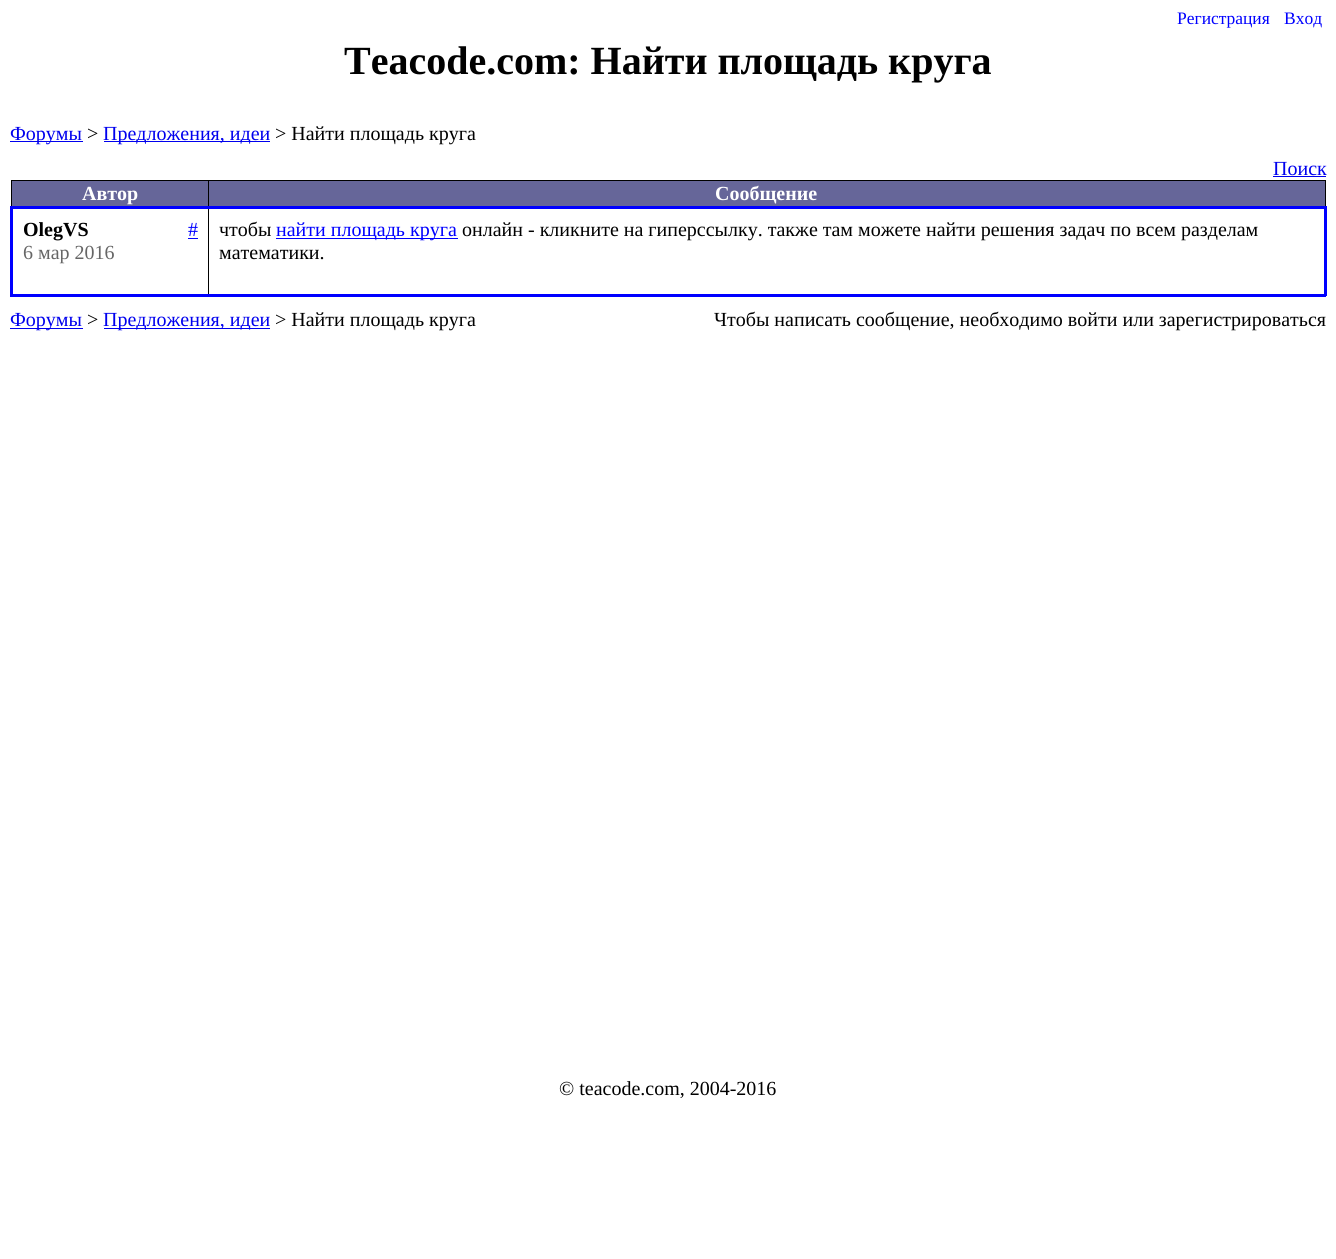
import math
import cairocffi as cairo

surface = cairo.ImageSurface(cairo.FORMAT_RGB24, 1336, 1259)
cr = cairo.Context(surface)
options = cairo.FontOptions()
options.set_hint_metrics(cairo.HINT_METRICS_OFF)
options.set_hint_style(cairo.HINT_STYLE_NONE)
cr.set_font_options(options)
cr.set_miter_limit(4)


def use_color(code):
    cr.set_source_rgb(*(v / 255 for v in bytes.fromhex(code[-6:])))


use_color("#ffffff")
cr.paint()
cr.select_font_face("Liberation Serif")
cr.set_font_size(17.5)
use_color("#0000ff")
cr.move_to(1177, 24)
cr.show_text("Регистрация")
cr.move_to(1284, 24)
cr.show_text("Вход")
cr.select_font_face("Liberation Serif", cairo.FONT_SLANT_NORMAL, cairo.FONT_WEIGHT_BOLD)
cr.set_font_size(40)
use_color("#000000")
cr.move_to(344, 74)
cr.show_text("Teacode.com: Найти площадь круга")
use_color("#0000ee")
cr.rectangle(10, 141, 73, 1)
cr.fill()
cr.select_font_face("Liberation Serif")
cr.set_font_size(20)
cr.move_to(10, 140)
cr.show_text("Форумы")
use_color("#000000")
cr.move_to(87, 140)
cr.show_text(">")
use_color("#0000ee")
cr.rectangle(104, 141, 166, 1)
cr.fill()
cr.move_to(103, 140)
cr.show_text("Предложения, идеи")
use_color("#000000")
cr.move_to(275, 140)
cr.show_text("> Найти площадь круга")
use_color("#0000ee")
cr.move_to(1273, 175)
cr.show_text("Поиск")
cr.rectangle(1273, 176, 53, 1)
cr.fill()
use_color("#666699")
cr.rectangle(12, 181, 1313, 25)
cr.fill()
use_color("#000000")
cr.rectangle(208, 180, 1118, 1)
cr.fill()
cr.rectangle(208, 206, 1, 89)
cr.fill()
cr.rectangle(208, 180, 1, 28)
cr.fill()
cr.rectangle(11, 180, 198, 1)
cr.fill()
cr.rectangle(11, 180, 1, 28)
cr.fill()
cr.select_font_face("Liberation Serif", cairo.FONT_SLANT_NORMAL, cairo.FONT_WEIGHT_BOLD)
use_color("#ffffff")
cr.move_to(82, 200)
cr.show_text("Автор")
use_color("#000000")
cr.rectangle(1325, 180, 1, 28)
cr.fill()
use_color("#ffffff")
cr.move_to(715, 200)
cr.show_text("Сообщение")
use_color("#0000ff")
cr.rectangle(10, 206, 1316, 3)
cr.fill()
cr.rectangle(1324, 206, 3, 90)
cr.fill()
cr.rectangle(10, 294, 1316, 3)
cr.fill()
cr.rectangle(10, 206, 3, 90)
cr.fill()
use_color("#000000")
cr.move_to(23, 236)
cr.show_text("OlegVS")
cr.select_font_face("Liberation Serif")
use_color("#0000ff")
cr.move_to(188, 236)
cr.show_text("#")
cr.rectangle(188, 238, 10, 1)
cr.fill()
use_color("#666666")
cr.move_to(23, 259)
cr.show_text("6 мар 2016")
use_color("#000000")
cr.move_to(219, 236)
cr.show_text("чтобы")
use_color("#0000ff")
cr.rectangle(276, 238, 182, 1)
cr.fill()
cr.move_to(276, 236)
cr.show_text("найти площадь круга")
use_color("#000000")
cr.move_to(462, 236)
cr.show_text("онлайн - кликните на гиперссылку. также там можете найти решения задач по всем разделам")
cr.move_to(219, 259)
cr.show_text("математики.")
use_color("#0000ee")
cr.rectangle(10, 328, 73, 1)
cr.fill()
cr.move_to(10, 326)
cr.show_text("Форумы")
use_color("#000000")
cr.move_to(87, 326)
cr.show_text(">")
use_color("#0000ee")
cr.rectangle(104, 328, 166, 1)
cr.fill()
cr.move_to(103, 326)
cr.show_text("Предложения, идеи")
use_color("#000000")
cr.move_to(275, 326)
cr.show_text("> Найти площадь круга")
cr.move_to(714, 326)
cr.show_text("Чтобы написать сообщение, необходимо войти или зарегистрироваться")
cr.move_to(559, 1095)
cr.show_text("© teacode.com, 2004-2016")
surface.write_to_png("result.png")
